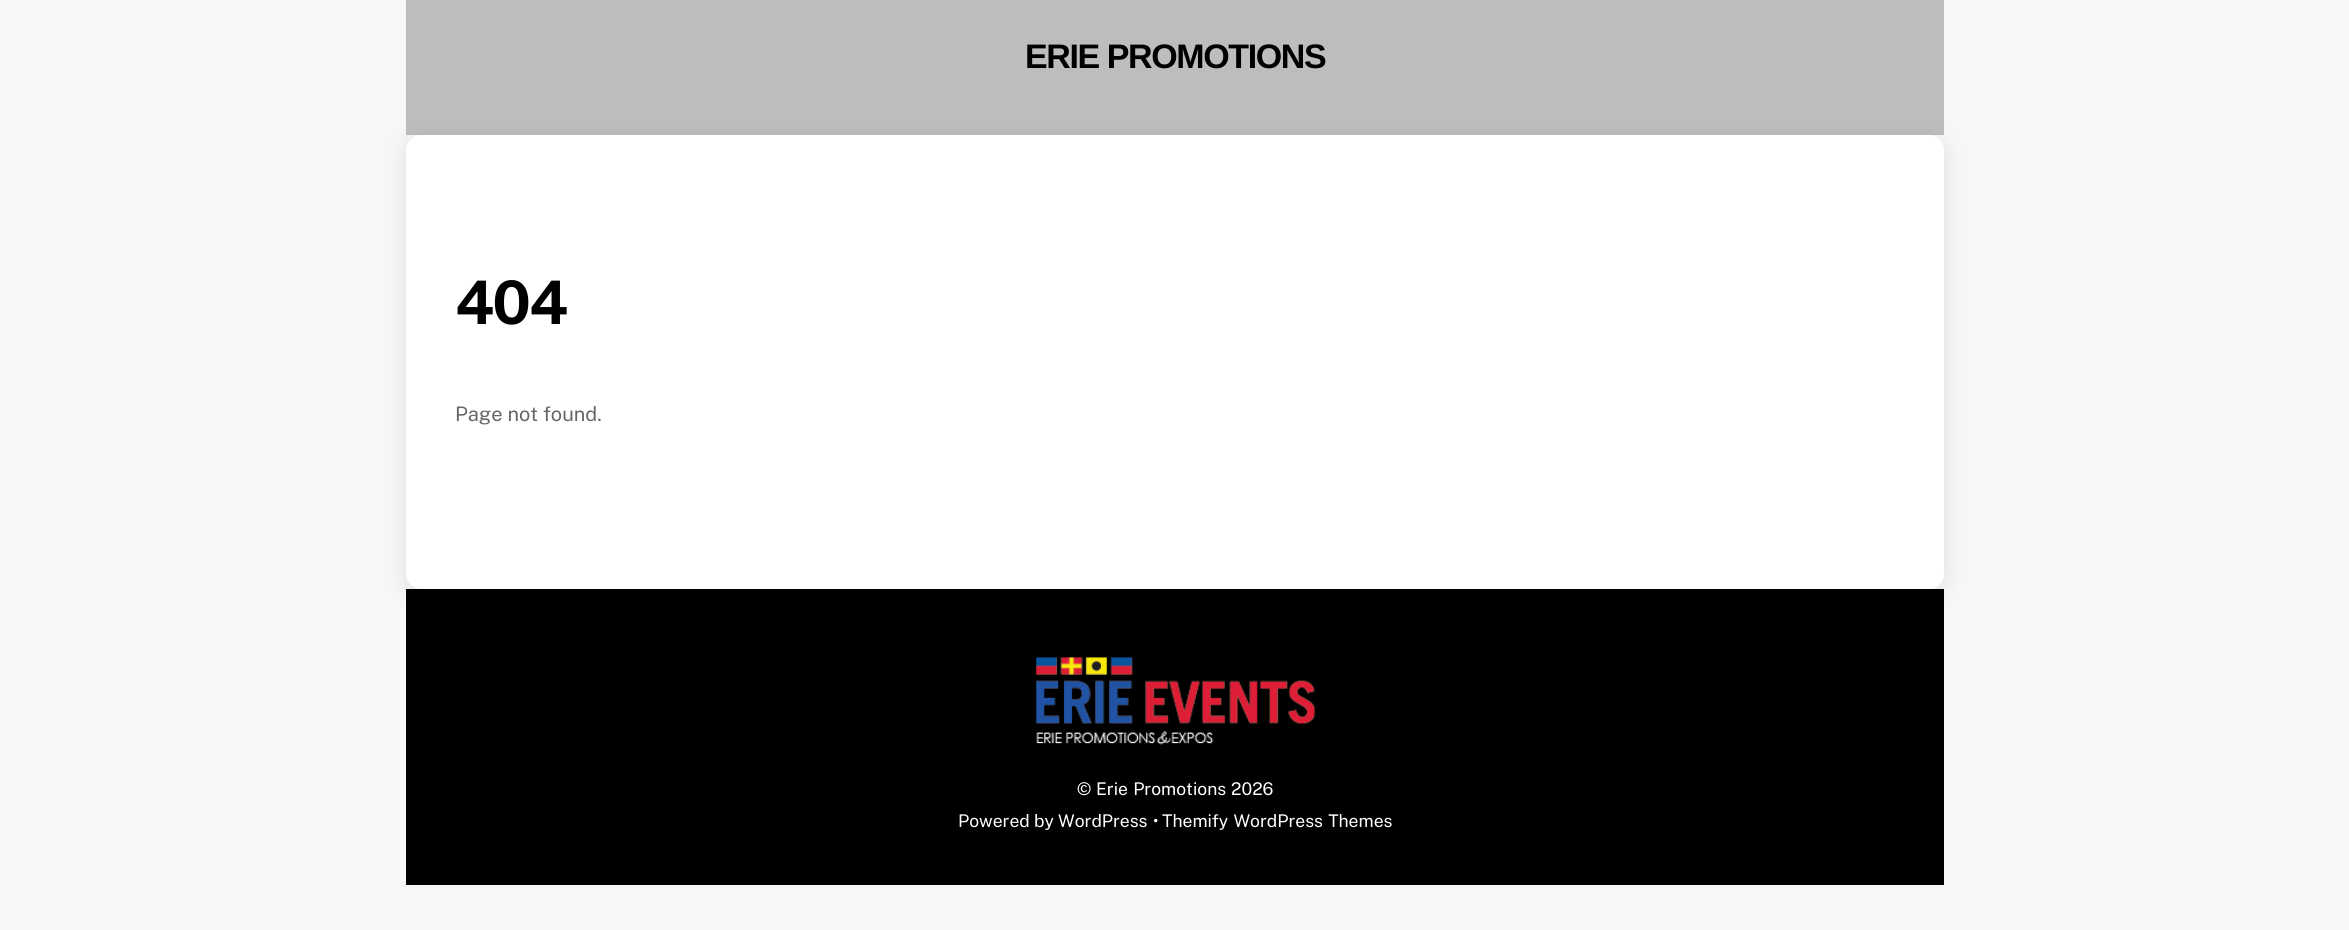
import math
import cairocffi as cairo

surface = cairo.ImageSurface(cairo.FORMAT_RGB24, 2349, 930)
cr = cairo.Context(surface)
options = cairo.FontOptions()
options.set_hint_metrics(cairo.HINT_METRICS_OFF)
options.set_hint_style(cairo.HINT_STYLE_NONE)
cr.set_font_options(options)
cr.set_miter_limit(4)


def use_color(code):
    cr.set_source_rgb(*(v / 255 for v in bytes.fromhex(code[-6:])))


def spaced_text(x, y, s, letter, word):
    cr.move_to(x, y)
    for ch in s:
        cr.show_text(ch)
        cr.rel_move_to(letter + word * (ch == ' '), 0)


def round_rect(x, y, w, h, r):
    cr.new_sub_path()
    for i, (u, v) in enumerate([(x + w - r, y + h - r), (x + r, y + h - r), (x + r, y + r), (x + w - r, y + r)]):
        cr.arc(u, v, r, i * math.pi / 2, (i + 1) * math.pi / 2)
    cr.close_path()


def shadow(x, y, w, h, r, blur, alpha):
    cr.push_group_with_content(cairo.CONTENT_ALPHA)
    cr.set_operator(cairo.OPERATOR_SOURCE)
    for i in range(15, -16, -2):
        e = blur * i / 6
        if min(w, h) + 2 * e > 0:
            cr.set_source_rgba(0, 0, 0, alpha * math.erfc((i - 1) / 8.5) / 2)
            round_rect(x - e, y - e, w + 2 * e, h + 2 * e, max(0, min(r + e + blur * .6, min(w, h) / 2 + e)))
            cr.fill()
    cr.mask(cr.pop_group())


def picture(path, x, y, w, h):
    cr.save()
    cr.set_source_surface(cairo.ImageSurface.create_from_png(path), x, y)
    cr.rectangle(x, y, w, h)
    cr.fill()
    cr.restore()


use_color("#f7f7f7")
cr.paint()
use_color("#bdbdbd")
cr.rectangle(406, 0, 1538, 135)
cr.fill()
cr.select_font_face("Liberation Sans", cairo.FONT_SLANT_NORMAL, cairo.FONT_WEIGHT_BOLD)
cr.set_font_size(34)
use_color("#000000")
spaced_text(1025, 68, "ERIE PROMOTIONS", -1.4, 0)
use_color("#000000")
shadow(406, 139, 1538, 454, 15, 10, 0.1)
use_color("#ffffff")
round_rect(406, 135, 1538, 454, 15)
cr.fill()
cr.select_font_face("Public Sans", cairo.FONT_SLANT_NORMAL, cairo.FONT_WEIGHT_BOLD)
cr.set_font_size(60)
use_color("#000000")
spaced_text(455, 324, "404", -2, 0)
cr.select_font_face("Public Sans")
cr.set_font_size(20)
use_color("#666666")
cr.move_to(455, 421)
cr.show_text("Page not found.")
use_color("#000000")
cr.rectangle(406, 589, 1538, 296)
cr.fill()
picture("img1.png", 1036, 657, 280, 88)
cr.set_font_size(17.5)
use_color("#ffffff")
cr.move_to(1077, 795)
cr.show_text("©")
spaced_text(1096, 795, "Erie Promotions", 0, 1)
cr.move_to(1231, 795)
cr.show_text("2026")
cr.move_to(958, 827)
cr.show_text("Powered by")
cr.move_to(1058, 827)
cr.show_text("WordPress")
cr.move_to(1153, 827)
cr.show_text("•")
spaced_text(1162, 827, "Themify WordPress Themes", 0, 1)
surface.write_to_png("result.png")
